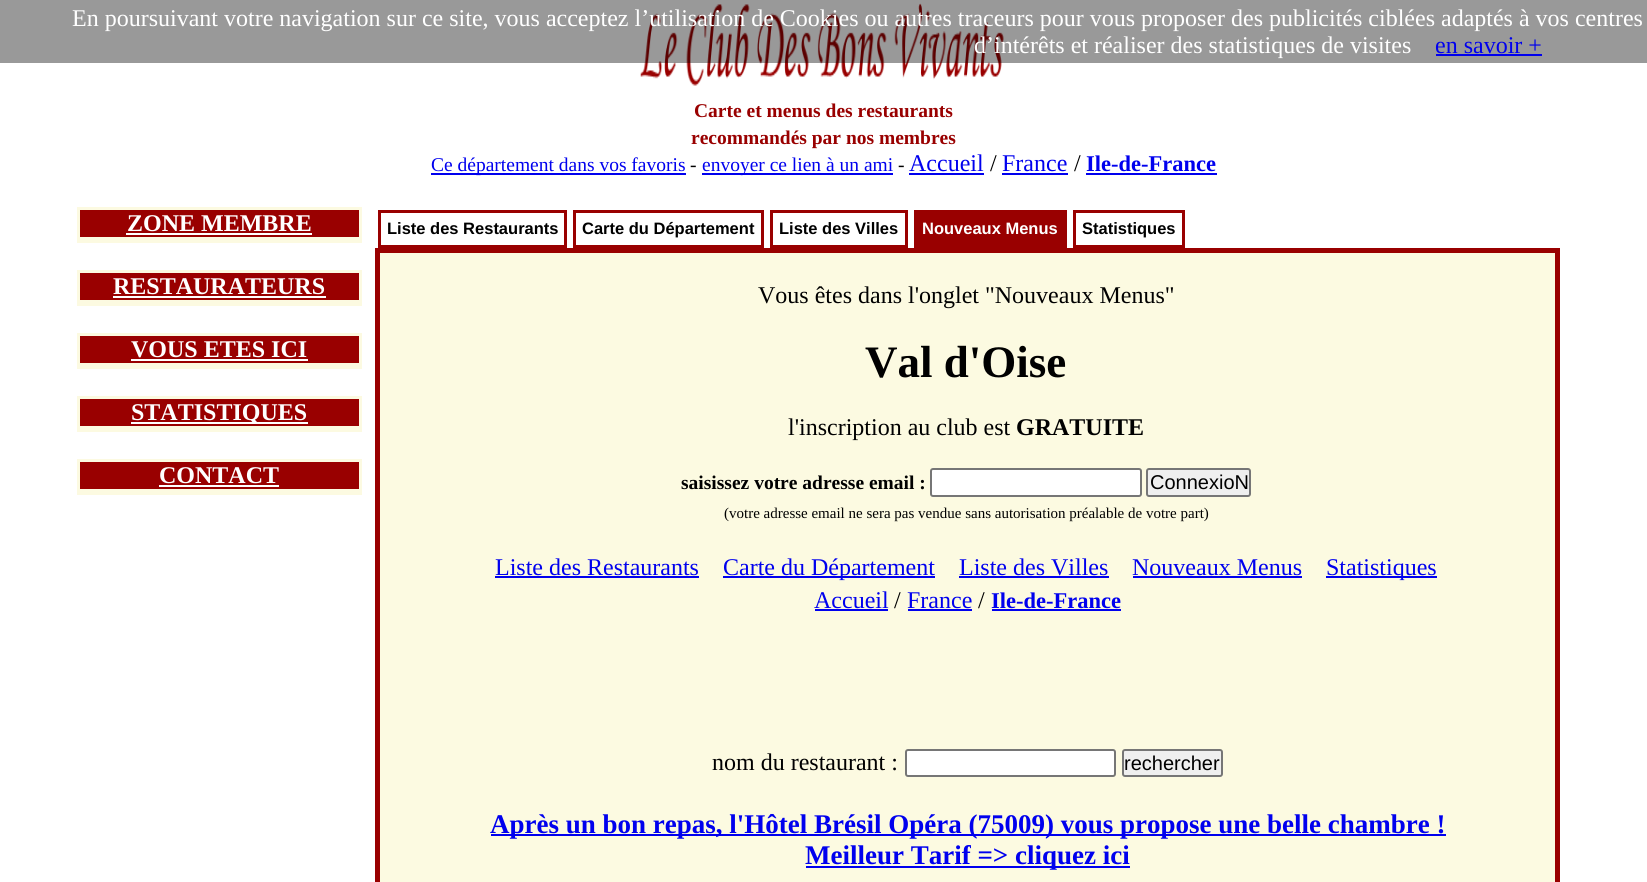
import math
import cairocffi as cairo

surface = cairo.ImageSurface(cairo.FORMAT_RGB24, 1647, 882)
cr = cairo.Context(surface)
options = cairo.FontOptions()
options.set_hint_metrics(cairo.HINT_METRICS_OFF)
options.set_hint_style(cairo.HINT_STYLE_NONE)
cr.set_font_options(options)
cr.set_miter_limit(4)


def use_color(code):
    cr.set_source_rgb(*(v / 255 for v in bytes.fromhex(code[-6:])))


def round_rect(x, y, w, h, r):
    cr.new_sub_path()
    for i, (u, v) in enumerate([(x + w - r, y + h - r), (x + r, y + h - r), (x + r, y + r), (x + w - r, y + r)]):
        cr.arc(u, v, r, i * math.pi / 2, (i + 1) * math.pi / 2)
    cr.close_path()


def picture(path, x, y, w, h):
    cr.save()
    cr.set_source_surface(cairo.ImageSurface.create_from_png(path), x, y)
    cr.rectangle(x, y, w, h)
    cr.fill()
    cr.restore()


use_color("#ffffff")
cr.paint()
picture("img1.png", 640, 3, 364, 83)
cr.set_source_rgba(0, 0, 0, 0.4)
cr.rectangle(0, 0, 1647, 63)
cr.fill()
cr.select_font_face("Liberation Serif")
cr.set_font_size(24)
use_color("#ffffff")
cr.move_to(72, 26)
cr.show_text("En poursuivant votre navigation sur ce site, vous acceptez l’utilisation de Cookies ou autres traceurs pour vous proposer des publicités ciblées adaptés à vos centres")
cr.move_to(974, 53)
cr.show_text("d’intérêts et réaliser des statistiques de visites")
use_color("#0000ee")
cr.move_to(1435, 53)
cr.show_text("en savoir +")
cr.rectangle(1436, 54, 106, 2)
cr.fill()
cr.select_font_face("Liberation Serif", cairo.FONT_SLANT_NORMAL, cairo.FONT_WEIGHT_BOLD)
cr.set_font_size(19.5)
use_color("#990000")
cr.move_to(694, 117)
cr.show_text("Carte et menus des restaurants")
cr.move_to(691, 144)
cr.show_text("recommandés par nos membres")
use_color("#0000ee")
cr.rectangle(431, 173, 255, 2)
cr.fill()
cr.select_font_face("Liberation Serif")
cr.move_to(431, 171)
cr.show_text("Ce département dans vos favoris")
use_color("#000000")
cr.move_to(690, 171)
cr.show_text("-")
use_color("#0000ee")
cr.rectangle(702, 173, 191, 2)
cr.fill()
cr.move_to(702, 171)
cr.show_text("envoyer ce lien à un ami")
use_color("#000000")
cr.move_to(898, 171)
cr.show_text("-")
use_color("#0000ee")
cr.rectangle(909, 173, 75, 2)
cr.fill()
cr.set_font_size(24)
cr.move_to(909, 171)
cr.show_text("Accueil")
use_color("#000000")
cr.move_to(990, 171)
cr.show_text("/")
use_color("#0000ee")
cr.move_to(1002, 171)
cr.show_text("France")
cr.rectangle(1002, 173, 66, 2)
cr.fill()
use_color("#000000")
cr.move_to(1074, 171)
cr.show_text("/")
cr.select_font_face("Liberation Serif", cairo.FONT_SLANT_NORMAL, cairo.FONT_WEIGHT_BOLD)
cr.set_font_size(22.5)
use_color("#0000ee")
cr.move_to(1086, 171)
cr.show_text("Ile-de-France")
cr.rectangle(1086, 173, 131, 2)
cr.fill()
use_color("#fcfae1")
cr.rectangle(77, 207, 285, 36)
cr.fill()
use_color("#990000")
cr.rectangle(80, 210, 279, 27)
cr.fill()
cr.set_font_size(24)
use_color("#ffffff")
cr.move_to(127, 231)
cr.show_text("ZONE MEMBRE")
cr.rectangle(126, 233, 186, 2)
cr.fill()
use_color("#fcfae1")
cr.rectangle(77, 270, 285, 36)
cr.fill()
use_color("#990000")
cr.rectangle(80, 273, 279, 27)
cr.fill()
use_color("#ffffff")
cr.move_to(113, 294)
cr.show_text("RESTAURATEURS")
cr.rectangle(113, 296, 213, 2)
cr.fill()
use_color("#fcfae1")
cr.rectangle(77, 333, 285, 36)
cr.fill()
use_color("#990000")
cr.rectangle(80, 336, 279, 27)
cr.fill()
use_color("#ffffff")
cr.move_to(131, 357)
cr.show_text("VOUS ETES ICI")
cr.rectangle(131, 359, 177, 2)
cr.fill()
use_color("#fcfae1")
cr.rectangle(77, 396, 285, 36)
cr.fill()
use_color("#990000")
cr.rectangle(80, 399, 279, 27)
cr.fill()
use_color("#ffffff")
cr.rectangle(131, 422, 177, 2)
cr.fill()
cr.move_to(131, 420)
cr.show_text("STATISTIQUES")
use_color("#fcfae1")
cr.rectangle(77, 459, 285, 36)
cr.fill()
use_color("#990000")
cr.rectangle(80, 462, 279, 27)
cr.fill()
use_color("#ffffff")
cr.move_to(159, 483)
cr.show_text("CONTACT")
cr.rectangle(159, 485, 120, 2)
cr.fill()
cr.rectangle(379.5, 211.5, 186, 35)
use_color("#990000")
cr.set_line_width(3)
cr.stroke()
cr.select_font_face("Liberation Sans", cairo.FONT_SLANT_NORMAL, cairo.FONT_WEIGHT_BOLD)
cr.set_font_size(16.5)
use_color("#000000")
cr.move_to(387, 234)
cr.show_text("Liste des Restaurants")
cr.rectangle(574.5, 211.5, 188, 35)
use_color("#990000")
cr.stroke()
use_color("#000000")
cr.move_to(582, 234)
cr.show_text("Carte du Département")
cr.rectangle(771.5, 211.5, 135, 35)
use_color("#990000")
cr.stroke()
use_color("#000000")
cr.move_to(779, 234)
cr.show_text("Liste des Villes")
use_color("#990000")
cr.rectangle(914, 210, 153, 38)
cr.fill()
use_color("#ffffff")
cr.move_to(922, 234)
cr.show_text("Nouveaux Menus")
cr.rectangle(1074.5, 211.5, 109, 35)
use_color("#990000")
cr.stroke()
use_color("#000000")
cr.move_to(1082, 234)
cr.show_text("Statistiques")
use_color("#fcfae1")
cr.rectangle(377.5, 250.5, 1180, 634)
cr.fill_preserve()
use_color("#990000")
cr.set_line_width(5)
cr.stroke()
cr.select_font_face("Liberation Serif")
cr.set_font_size(24)
use_color("#000000")
cr.move_to(758, 303)
cr.show_text("Vous êtes dans l'onglet \"Nouveaux Menus\"")
cr.select_font_face("Liberation Serif", cairo.FONT_SLANT_NORMAL, cairo.FONT_WEIGHT_BOLD)
cr.set_font_size(45)
cr.move_to(865, 377)
cr.show_text("Val d'Oise")
cr.select_font_face("Liberation Serif")
cr.set_font_size(24)
cr.move_to(788, 435)
cr.show_text("l'inscription au club est")
cr.select_font_face("Liberation Serif", cairo.FONT_SLANT_NORMAL, cairo.FONT_WEIGHT_BOLD)
cr.move_to(1016, 435)
cr.show_text("GRATUITE")
cr.set_font_size(19.5)
cr.move_to(681, 489)
cr.show_text("saisissez votre adresse email :")
use_color("#ffffff")
round_rect(931, 469, 210, 27, 2)
cr.fill_preserve()
use_color("#767676")
cr.set_line_width(2)
cr.stroke()
use_color("#efefef")
round_rect(1147, 469, 103, 27, 2)
cr.fill_preserve()
use_color("#767676")
cr.stroke()
cr.select_font_face("Liberation Sans")
cr.set_font_size(20)
use_color("#000000")
cr.move_to(1150, 489)
cr.show_text("ConnexioN")
cr.select_font_face("Liberation Serif")
cr.set_font_size(15)
cr.move_to(724, 518)
cr.show_text("(votre adresse email ne sera pas vendue sans autorisation préalable de votre part)")
cr.set_font_size(24)
use_color("#0000ee")
cr.move_to(495, 575)
cr.show_text("Liste des Restaurants")
cr.rectangle(495, 576, 204, 2)
cr.fill()
cr.rectangle(723, 576, 212, 2)
cr.fill()
cr.move_to(723, 575)
cr.show_text("Carte du Département")
cr.move_to(959, 575)
cr.show_text("Liste des Villes")
cr.rectangle(959, 576, 150, 2)
cr.fill()
cr.move_to(1132, 575)
cr.show_text("Nouveaux Menus")
cr.rectangle(1133, 576, 169, 2)
cr.fill()
cr.rectangle(1326, 576, 111, 2)
cr.fill()
cr.move_to(1326, 575)
cr.show_text("Statistiques")
cr.move_to(814, 608)
cr.show_text("Accueil")
cr.rectangle(815, 609, 73, 2)
cr.fill()
use_color("#000000")
cr.move_to(894, 608)
cr.show_text("/")
use_color("#0000ee")
cr.move_to(907, 608)
cr.show_text("France")
cr.rectangle(908, 609, 64, 2)
cr.fill()
use_color("#000000")
cr.move_to(978, 608)
cr.show_text("/")
cr.select_font_face("Liberation Serif", cairo.FONT_SLANT_NORMAL, cairo.FONT_WEIGHT_BOLD)
cr.set_font_size(22.5)
use_color("#0000ee")
cr.move_to(991, 608)
cr.show_text("Ile-de-France")
cr.rectangle(992, 609, 129, 2)
cr.fill()
cr.select_font_face("Liberation Serif")
cr.set_font_size(24)
use_color("#000000")
cr.move_to(712, 770)
cr.show_text("nom du restaurant :")
use_color("#ffffff")
round_rect(906, 750, 209, 26, 2)
cr.fill_preserve()
use_color("#767676")
cr.stroke()
use_color("#efefef")
round_rect(1123, 750, 99, 26, 2)
cr.fill_preserve()
use_color("#767676")
cr.stroke()
cr.select_font_face("Liberation Sans")
cr.set_font_size(20)
use_color("#000000")
cr.move_to(1124, 770)
cr.show_text("rechercher")
use_color("#0000ee")
cr.rectangle(491, 834, 955, 2)
cr.fill()
cr.select_font_face("Liberation Serif", cairo.FONT_SLANT_NORMAL, cairo.FONT_WEIGHT_BOLD)
cr.set_font_size(27)
cr.move_to(490, 833)
cr.show_text("Après un bon repas, l'Hôtel Brésil Opéra (75009) vous propose une belle chambre !")
cr.rectangle(806, 866, 324, 2)
cr.fill()
cr.move_to(805, 864)
cr.show_text("Meilleur Tarif => cliquez ici")
surface.write_to_png("result.png")
